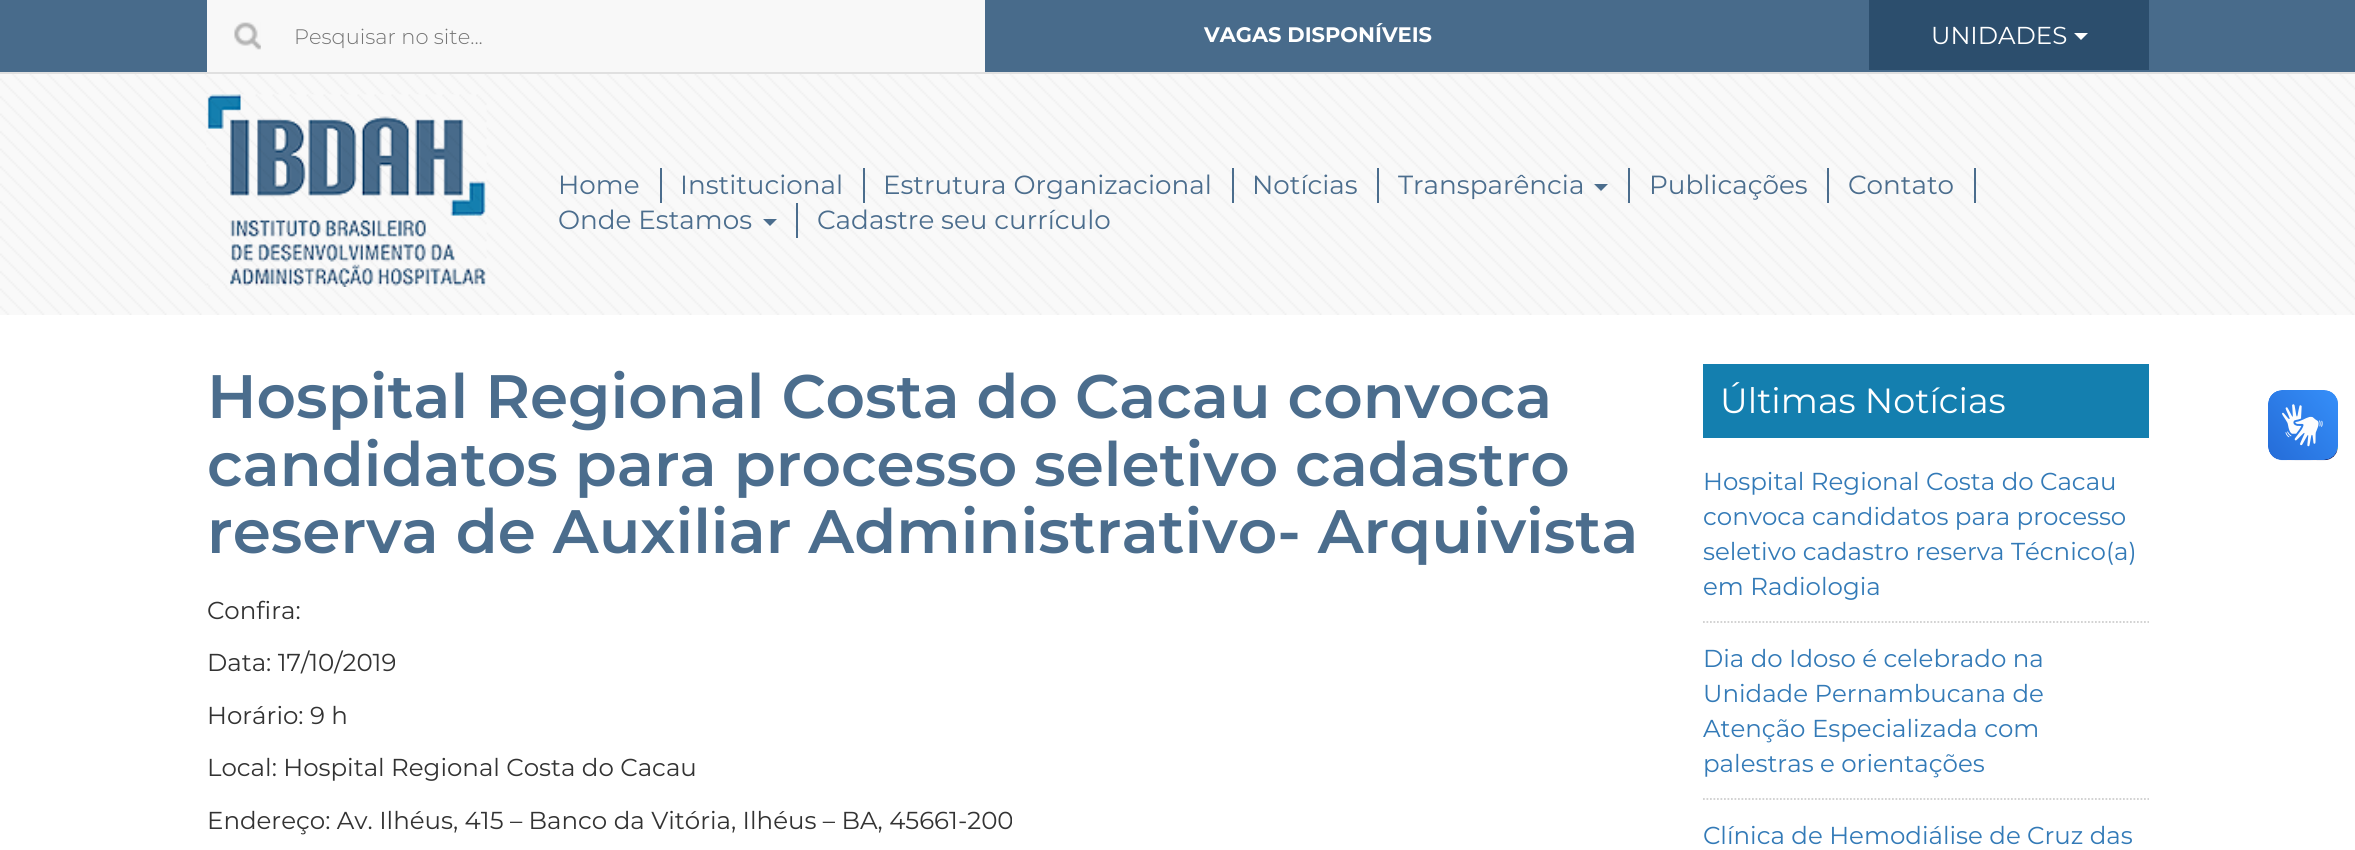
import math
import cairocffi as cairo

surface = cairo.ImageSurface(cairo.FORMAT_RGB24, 2355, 850)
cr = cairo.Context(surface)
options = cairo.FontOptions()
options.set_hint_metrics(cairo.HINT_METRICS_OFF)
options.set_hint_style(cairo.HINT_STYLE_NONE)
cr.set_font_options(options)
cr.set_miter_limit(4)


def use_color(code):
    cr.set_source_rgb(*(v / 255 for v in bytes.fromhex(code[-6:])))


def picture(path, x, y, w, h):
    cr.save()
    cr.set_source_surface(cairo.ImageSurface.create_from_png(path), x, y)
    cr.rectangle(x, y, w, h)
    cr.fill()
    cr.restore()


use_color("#ffffff")
cr.paint()
use_color("#486b8b")
cr.rectangle(0, 0, 2355, 72)
cr.fill()
use_color("#e0e0e0")
cr.rectangle(0, 72, 2355, 2)
cr.fill()
use_color("#f8f8f8")
cr.rectangle(207, 0, 778, 72)
cr.fill()
picture("img1.png", 234, 22, 27, 28)
cr.select_font_face("Montserrat Light")
cr.set_font_size(21)
use_color("#757575")
cr.move_to(294, 44)
cr.show_text("Pesquisar no site...")
cr.select_font_face("Montserrat", cairo.FONT_SLANT_NORMAL, cairo.FONT_WEIGHT_BOLD)
use_color("#ffffff")
cr.move_to(1204, 42)
cr.show_text("VAGAS DISPONÍVEIS")
use_color("#2c4e6d")
cr.rectangle(1869, 0, 280, 70)
cr.fill()
cr.select_font_face("Montserrat")
cr.set_font_size(24.5)
use_color("#ffffff")
cr.move_to(1931, 44)
cr.show_text("UNIDADES")
cr.new_path()
cr.move_to(2074, 33)
cr.line_to(2088, 33)
cr.line_to(2081, 40)
cr.close_path()
cr.fill()
picture("img2.png", 0, 74, 2355, 241)
picture("img3.png", 206, 94, 281, 193)
use_color("#4b6d8d")
cr.rectangle(660, 168, 2, 35)
cr.fill()
cr.set_font_size(26.25)
cr.move_to(558, 194)
cr.show_text("Home")
cr.rectangle(863, 168, 2, 35)
cr.fill()
cr.move_to(680, 194)
cr.show_text("Institucional")
cr.rectangle(1232, 168, 2, 35)
cr.fill()
cr.move_to(883, 194)
cr.show_text("Estrutura Organizacional")
cr.rectangle(1377, 168, 2, 35)
cr.fill()
cr.move_to(1252, 194)
cr.show_text("Notícias")
cr.rectangle(1628, 168, 2, 35)
cr.fill()
cr.move_to(1398, 194)
cr.show_text("Transparência")
cr.new_path()
cr.move_to(1594, 184)
cr.line_to(1608, 184)
cr.line_to(1601, 191)
cr.close_path()
cr.fill()
cr.rectangle(1827, 168, 2, 35)
cr.fill()
cr.move_to(1649, 194)
cr.show_text("Publicações")
cr.rectangle(1974, 168, 2, 35)
cr.fill()
cr.move_to(1848, 194)
cr.show_text("Contato")
cr.rectangle(796, 203, 2, 35)
cr.fill()
cr.move_to(558, 229)
cr.show_text("Onde Estamos")
cr.new_path()
cr.move_to(763, 219)
cr.line_to(777, 219)
cr.line_to(770, 226)
cr.close_path()
cr.fill()
cr.move_to(817, 229)
cr.show_text("Cadastre seu currículo")
cr.select_font_face("Montserrat SemiBold")
cr.set_font_size(61.25)
cr.move_to(207, 418)
cr.show_text("Hospital Regional Costa do Cacau convoca")
cr.move_to(207, 486)
cr.show_text("candidatos para processo seletivo cadastro")
cr.move_to(207, 553)
cr.show_text("reserva de Auxiliar Administrativo- Arquivista")
cr.select_font_face("Montserrat")
cr.set_font_size(24.5)
use_color("#333333")
cr.move_to(207, 619)
cr.show_text("Confira:")
cr.move_to(207, 671)
cr.show_text("Data: 17/10/2019")
cr.move_to(207, 724)
cr.show_text("Horário: 9 h")
cr.move_to(207, 776)
cr.show_text("Local: Hospital Regional Costa do Cacau")
cr.move_to(207, 829)
cr.show_text("Endereço: Av. Ilhéus, 415 – Banco da Vitória, Ilhéus – BA, 45661-200")
use_color("#147faf")
cr.rectangle(1703, 364, 446, 74)
cr.fill()
cr.set_font_size(35)
use_color("#ffffff")
cr.move_to(1720, 413)
cr.show_text("Últimas Notícias")
cr.new_path()
cr.move_to(1703, 622)
cr.line_to(2149, 622)
use_color("#cecece")
cr.set_line_width(1.8)
cr.set_dash([1.75, 1.75])
cr.stroke()
cr.set_font_size(24.5)
use_color("#337ab7")
cr.move_to(1703, 490)
cr.show_text("Hospital Regional Costa do Cacau")
cr.move_to(1703, 525)
cr.show_text("convoca candidatos para processo")
cr.move_to(1703, 560)
cr.show_text("seletivo cadastro reserva Técnico(a)")
cr.move_to(1703, 595)
cr.show_text("em Radiologia")
cr.new_path()
cr.move_to(1703, 799)
cr.line_to(2149, 799)
use_color("#cecece")
cr.stroke()
use_color("#337ab7")
cr.move_to(1703, 667)
cr.show_text("Dia do Idoso é celebrado na")
cr.move_to(1703, 702)
cr.show_text("Unidade Pernambucana de")
cr.move_to(1703, 737)
cr.show_text("Atenção Especializada com")
cr.move_to(1703, 772)
cr.show_text("palestras e orientações")
cr.move_to(1703, 844)
cr.show_text("Clínica de Hemodiálise de Cruz das")
picture("img4.png", 2268, 390, 70, 71)
picture("img5.png", 2268, 390, 70, 70)
surface.write_to_png("result.png")
